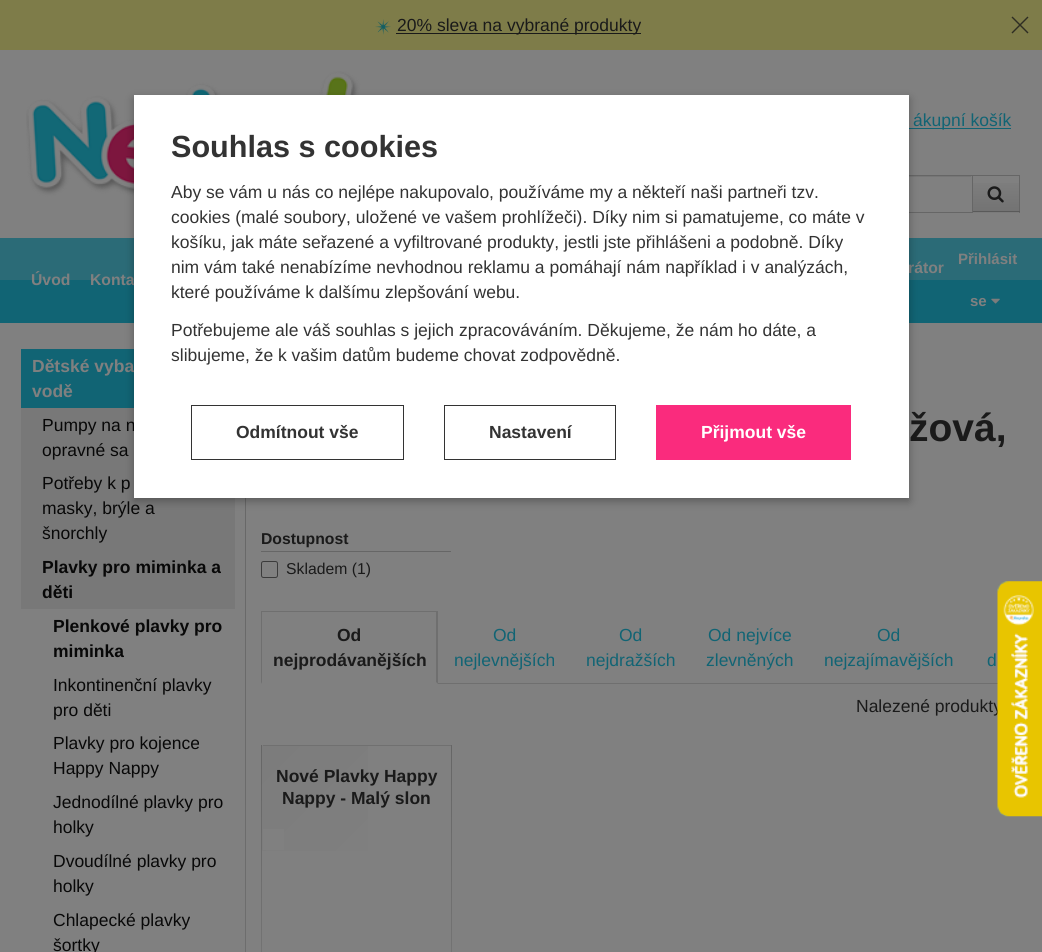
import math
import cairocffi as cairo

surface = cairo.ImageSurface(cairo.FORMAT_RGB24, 1042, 952)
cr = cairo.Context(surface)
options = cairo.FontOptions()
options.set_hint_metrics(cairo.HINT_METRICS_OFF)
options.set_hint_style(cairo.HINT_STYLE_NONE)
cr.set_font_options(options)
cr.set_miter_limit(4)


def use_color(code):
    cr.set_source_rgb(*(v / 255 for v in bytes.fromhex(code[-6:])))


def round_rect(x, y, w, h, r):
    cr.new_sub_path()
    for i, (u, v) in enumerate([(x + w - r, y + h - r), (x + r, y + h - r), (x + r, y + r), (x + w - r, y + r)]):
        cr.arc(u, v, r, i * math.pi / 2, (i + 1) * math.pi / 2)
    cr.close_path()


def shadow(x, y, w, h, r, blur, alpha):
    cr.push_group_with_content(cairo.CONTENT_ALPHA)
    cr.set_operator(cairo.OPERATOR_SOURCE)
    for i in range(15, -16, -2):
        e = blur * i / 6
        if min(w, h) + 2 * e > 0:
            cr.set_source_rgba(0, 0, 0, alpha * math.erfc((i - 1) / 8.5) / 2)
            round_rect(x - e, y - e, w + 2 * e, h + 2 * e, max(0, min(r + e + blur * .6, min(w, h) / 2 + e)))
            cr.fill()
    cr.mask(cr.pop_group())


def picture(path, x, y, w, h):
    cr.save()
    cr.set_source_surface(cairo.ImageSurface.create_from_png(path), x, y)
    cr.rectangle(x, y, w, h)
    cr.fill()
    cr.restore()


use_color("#808080")
cr.paint()
use_color("#7e7c49")
cr.rectangle(0, 0, 1042, 50)
cr.fill()
picture("img1.png", 375, 19, 16, 16)
use_color("#1a1a1a")
cr.rectangle(396, 33, 245, 1)
cr.fill()
cr.select_font_face("Liberation Sans")
cr.set_font_size(17.5)
cr.move_to(397, 31)
cr.show_text("20% sleva na vybrané produkty")
use_color("#2e2d23")
cr.new_path()
cr.move_to(1027.5, 16.5)
cr.line_to(1028.5, 17.5)
cr.line_to(1012.5, 33.5)
cr.line_to(1011.5, 32.5)
cr.close_path()
cr.fill()
cr.new_path()
cr.move_to(1011.5, 17.5)
cr.line_to(1012.5, 16.5)
cr.line_to(1028.5, 32.5)
cr.line_to(1027.5, 33.5)
cr.close_path()
cr.fill()
picture("img2.png", 26, 71, 336, 128)
use_color("#116474")
cr.rectangle(901, 128, 110, 1)
cr.fill()
cr.move_to(913, 126)
cr.show_text("ákupní košík")
use_color("#666666")
cr.rectangle(971, 175, 49, 1)
cr.fill()
cr.rectangle(1019, 175, 1, 38)
cr.fill()
use_color("#5a5a5a")
cr.rectangle(971, 211, 49, 1)
cr.fill()
use_color("#808080")
cr.rectangle(971, 211, 1, 1)
cr.fill()
use_color("#767676")
cr.rectangle(909, 176, 62, 1)
cr.fill()
cr.rectangle(710.5, 175.5, 262, 37)
use_color("#666666")
cr.set_line_width(1)
cr.stroke()
use_color("#7b7b7b")
cr.rectangle(973, 212, 46, 1)
cr.fill()
gradient = cairo.LinearGradient(996, 176, 996, 211)
gradient.add_color_stop_rgba(0, 0.502, 0.502, 0.502, 1)
gradient.add_color_stop_rgba(1, 0.451, 0.451, 0.451, 1)
cr.set_source(gradient)
cr.rectangle(973, 183, 46, 28)
cr.fill()
picture("img3.png", 987, 186, 17, 17)
use_color("#2b6b77")
cr.rectangle(0, 238, 1042, 42)
cr.fill()
use_color("#116474")
cr.rectangle(0, 280, 1042, 43)
cr.fill()
cr.select_font_face("Liberation Sans", cairo.FONT_SLANT_NORMAL, cairo.FONT_WEIGHT_BOLD)
cr.set_font_size(15.75)
use_color("#808080")
cr.move_to(908, 273)
cr.show_text("rátor")
cr.move_to(31, 285)
cr.show_text("Úvod")
cr.move_to(90, 285)
cr.show_text("Konta")
cr.set_font_size(15)
cr.move_to(958, 264)
cr.show_text("Přihlásit")
cr.move_to(970, 306)
cr.show_text("se")
picture("img4.png", 991, 298, 9, 6)
use_color("#116474")
cr.rectangle(21, 349, 113, 59)
cr.fill()
cr.set_font_size(17.5)
use_color("#808080")
cr.move_to(32, 372)
cr.show_text("Dětské vyba")
cr.move_to(32, 397)
cr.show_text("vodě")
use_color("#787878")
cr.rectangle(21, 408, 214, 201)
cr.fill()
cr.select_font_face("Liberation Sans")
use_color("#080808")
cr.move_to(42, 431)
cr.show_text("Pumpy na n")
cr.move_to(42, 456)
cr.show_text("opravné sa")
cr.move_to(42, 489)
cr.show_text("Potřeby k p")
cr.move_to(42, 514)
cr.show_text("masky, brýle a")
cr.move_to(42, 539)
cr.show_text("šnorchly")
cr.select_font_face("Liberation Sans", cairo.FONT_SLANT_NORMAL, cairo.FONT_WEIGHT_BOLD)
cr.move_to(42, 573)
cr.show_text("Plavky pro miminka a")
cr.move_to(42, 598)
cr.show_text("děti")
cr.move_to(53, 632)
cr.show_text("Plenkové plavky pro")
cr.move_to(53, 657)
cr.show_text("miminka")
cr.select_font_face("Liberation Sans")
cr.move_to(53, 691)
cr.show_text("Inkontinenční plavky")
cr.move_to(53, 716)
cr.show_text("pro děti")
cr.move_to(53, 749)
cr.show_text("Plavky pro kojence")
cr.move_to(53, 774)
cr.show_text("Happy Nappy")
cr.move_to(53, 808)
cr.show_text("Jednodílné plavky pro")
cr.move_to(53, 833)
cr.show_text("holky")
cr.move_to(53, 867)
cr.show_text("Dvoudílné plavky pro")
cr.move_to(53, 892)
cr.show_text("holky")
cr.move_to(53, 926)
cr.show_text("Chlapecké plavky")
cr.move_to(53, 951)
cr.show_text("šortky")
gradient = cairo.LinearGradient(246, 340, 246, 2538)
gradient.add_color_stop_rgba(0, 0.4, 0.4, 0.4, 1)
gradient.add_color_stop_rgba(1, 0.502, 0.502, 0.502, 1)
cr.set_source(gradient)
cr.rectangle(245, 498, 1, 454)
cr.fill()
cr.select_font_face("Liberation Sans", cairo.FONT_SLANT_NORMAL, cairo.FONT_WEIGHT_BOLD)
cr.set_font_size(39)
use_color("#1a1a1a")
cr.move_to(909, 441)
cr.show_text("žová,")
cr.set_font_size(15.75)
cr.move_to(261, 544)
cr.show_text("Dostupnost")
use_color("#666666")
cr.rectangle(261, 551, 190, 1)
cr.fill()
round_rect(261.5, 561.5, 16, 16, 2)
use_color("#3b3b3b")
cr.stroke()
cr.select_font_face("Liberation Sans")
use_color("#1a1a1a")
cr.move_to(286, 574)
cr.show_text("Skladem (1)")
use_color("#6f6f6f")
cr.rectangle(261, 611, 177, 1)
cr.fill()
cr.new_path()
cr.move_to(438, 611)
cr.line_to(438, 684)
cr.line_to(436, 682)
cr.line_to(436, 612)
cr.close_path()
cr.fill()
cr.new_path()
cr.move_to(261, 684)
cr.line_to(261, 611)
cr.line_to(262, 612)
cr.line_to(262, 682)
cr.close_path()
cr.fill()
cr.select_font_face("Liberation Sans", cairo.FONT_SLANT_NORMAL, cairo.FONT_WEIGHT_BOLD)
cr.set_font_size(17.5)
use_color("#1a1a1a")
cr.move_to(337, 641)
cr.show_text("Od")
cr.move_to(273, 666)
cr.show_text("nejprodávanějších")
cr.select_font_face("Liberation Sans")
use_color("#116474")
cr.move_to(493, 641)
cr.show_text("Od")
cr.move_to(454, 666)
cr.show_text("nejlevnějších")
cr.move_to(619, 641)
cr.show_text("Od")
cr.move_to(586, 666)
cr.show_text("nejdražších")
cr.move_to(708, 641)
cr.show_text("Od nejvíce")
cr.move_to(706, 666)
cr.show_text("zlevněných")
cr.move_to(877, 641)
cr.show_text("Od")
cr.move_to(824, 666)
cr.show_text("nejzajímavějších")
cr.move_to(987, 666)
cr.show_text("d")
use_color("#6f6f6f")
cr.rectangle(438, 683, 560, 1)
cr.fill()
use_color("#1a1a1a")
cr.move_to(856, 712)
cr.show_text("Nalezené produkty")
gradient = cairo.LinearGradient(186, 820, 527, 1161)
gradient.add_color_stop_rgba(0, 0.486, 0.486, 0.486, 1)
gradient.add_color_stop_rgba(0.42, 0.502, 0.502, 0.502, 1)
gradient.add_color_stop_rgba(0.5, 0.502, 0.502, 0.502, 1)
cr.set_source(gradient)
cr.rectangle(262, 745, 106, 106)
cr.fill()
gradient = cairo.LinearGradient(452, 745, 452, 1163)
gradient.add_color_stop_rgba(0, 0.4, 0.4, 0.4, 1)
gradient.add_color_stop_rgba(1, 0.502, 0.502, 0.502, 1)
cr.set_source(gradient)
cr.rectangle(451, 745, 1, 207)
cr.fill()
gradient = cairo.LinearGradient(262, 745, 262, 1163)
gradient.add_color_stop_rgba(0, 0.4, 0.4, 0.4, 1)
gradient.add_color_stop_rgba(1, 0.502, 0.502, 0.502, 1)
cr.set_source(gradient)
cr.rectangle(261, 745, 1, 207)
cr.fill()
use_color("#707070")
cr.rectangle(263, 745, 188, 1)
cr.fill()
cr.select_font_face("Liberation Sans", cairo.FONT_SLANT_NORMAL, cairo.FONT_WEIGHT_BOLD)
use_color("#1a1a1a")
cr.move_to(276, 782)
cr.show_text("Nové Plavky Happy")
cr.move_to(282, 804)
cr.show_text("Nappy - Malý slon")
use_color("#808080")
cr.rectangle(263, 829, 21, 21)
cr.fill()
use_color("#000000")
shadow(134, 99, 775, 402, 0, 4.5, 0.3)
use_color("#ffffff")
cr.rectangle(134, 95, 775, 403)
cr.fill()
cr.set_font_size(30.6)
use_color("#333333")
cr.move_to(171, 157)
cr.show_text("Souhlas s cookies")
cr.select_font_face("Liberation Sans")
cr.set_font_size(17.5)
cr.move_to(171, 198)
cr.show_text("Aby se vám u nás co nejlépe nakupovalo, používáme my a někteří naši partneři tzv.")
cr.move_to(171, 223)
cr.show_text("cookies (malé soubory, uložené ve vašem prohlížeči). Díky nim si pamatujeme, co máte v")
cr.move_to(171, 248)
cr.show_text("košíku, jak máte seřazené a vyfiltrované produkty, jestli jste přihlášeni a podobně. Díky")
cr.move_to(171, 273)
cr.show_text("nim vám také nenabízíme nevhodnou reklamu a pomáhají nám například i v analýzách,")
cr.move_to(171, 298)
cr.show_text("které používáme k dalšímu zlepšování webu.")
cr.move_to(171, 336)
cr.show_text("Potřebujeme ale váš souhlas s jejich zpracováváním. Děkujeme, že nám ho dáte, a")
cr.move_to(171, 361)
cr.show_text("slibujeme, že k vašim datům budeme chovat zodpovědně.")
cr.rectangle(191.5, 405.5, 212, 54)
cr.stroke()
cr.select_font_face("Liberation Sans", cairo.FONT_SLANT_NORMAL, cairo.FONT_WEIGHT_BOLD)
cr.move_to(236, 438)
cr.show_text("Odmítnout vše")
cr.rectangle(444.5, 405.5, 171, 54)
cr.stroke()
cr.move_to(489, 438)
cr.show_text("Nastavení")
use_color("#fa2b7d")
cr.rectangle(656, 405, 195, 55)
cr.fill()
use_color("#ffffff")
cr.move_to(701, 438)
cr.show_text("Přijmout vše")
picture("img5.png", 997, 581, 45, 236)
surface.write_to_png("result.png")
